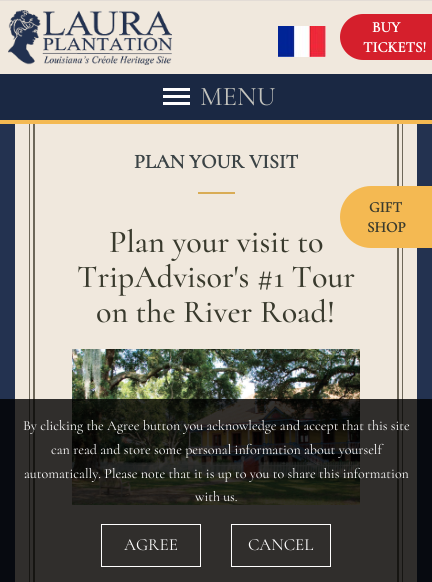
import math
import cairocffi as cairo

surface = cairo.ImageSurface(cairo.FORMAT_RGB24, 432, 582)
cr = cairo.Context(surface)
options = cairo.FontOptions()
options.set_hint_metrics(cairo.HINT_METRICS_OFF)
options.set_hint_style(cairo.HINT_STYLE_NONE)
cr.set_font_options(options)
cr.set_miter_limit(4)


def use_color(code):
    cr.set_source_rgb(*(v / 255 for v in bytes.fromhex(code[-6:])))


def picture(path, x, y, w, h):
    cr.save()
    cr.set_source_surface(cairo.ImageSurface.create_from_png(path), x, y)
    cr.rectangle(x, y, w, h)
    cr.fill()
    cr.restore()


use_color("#233250")
cr.paint()
use_color("#f0e8dd")
cr.rectangle(0, 1, 432, 73)
cr.fill()
picture("img1.png", 8, 10, 164, 55)
picture("img2.png", 278, 26, 48, 31)
use_color("#d51f2c")
cr.new_path()
cr.move_to(363, 14)
cr.line_to(432, 14)
cr.line_to(432, 60)
cr.line_to(363, 60)
cr.curve_to(350.5, 60, 340, 49.5, 340, 37)
cr.curve_to(340, 24.5, 350.5, 14, 363, 14)
cr.close_path()
cr.fill()
cr.select_font_face("Cormorant", cairo.FONT_SLANT_NORMAL, cairo.FONT_WEIGHT_BOLD)
cr.set_font_size(15)
use_color("#ffffff")
cr.move_to(372, 32)
cr.show_text("BUY")
cr.move_to(363, 52)
cr.show_text("TICKETS!")
use_color("#e3dcd6")
cr.rectangle(0, 0, 432, 1)
cr.fill()
use_color("#f0e8dd")
cr.rectangle(15, 124, 402, 458)
cr.fill()
cr.rectangle(29.5, 113.5, 373, 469)
use_color("#6d6759")
cr.set_line_width(1)
cr.stroke()
cr.rectangle(34, 118, 364, 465)
cr.set_line_width(2)
cr.stroke()
use_color("#1a2843")
cr.rectangle(0, 74, 432, 46)
cr.fill()
use_color("#f4b952")
cr.rectangle(0, 120, 432, 4)
cr.fill()
use_color("#ffffff")
cr.rectangle(163, 88, 27, 3)
cr.fill()
cr.rectangle(163, 95, 27, 3)
cr.fill()
cr.rectangle(163, 102, 27, 3)
cr.fill()
cr.select_font_face("Cormorant")
cr.set_font_size(27)
use_color("#c3c3bd")
cr.move_to(200, 105)
cr.show_text("MENU")
cr.select_font_face("Cormorant", cairo.FONT_SLANT_NORMAL, cairo.FONT_WEIGHT_BOLD)
cr.set_font_size(20)
use_color("#3b4345")
cr.move_to(134, 168)
cr.show_text("PLAN YOUR VISIT")
use_color("#d9ac55")
cr.rectangle(198, 192, 37, 2)
cr.fill()
cr.select_font_face("Cormorant Medium")
cr.set_font_size(32)
use_color("#393a2d")
cr.move_to(109, 252)
cr.show_text("Plan your visit to")
cr.move_to(77, 287)
cr.show_text("TripAdvisor's #1 Tour")
cr.move_to(96, 322)
cr.show_text("on the River Road!")
picture("img3.png", 72, 349, 288, 156)
use_color("#f4b952")
cr.new_path()
cr.move_to(371, 186)
cr.line_to(432, 186)
cr.line_to(432, 248)
cr.line_to(371, 248)
cr.curve_to(354, 248, 340, 234, 340, 217)
cr.curve_to(340, 200, 354, 186, 371, 186)
cr.close_path()
cr.fill()
cr.select_font_face("Cormorant", cairo.FONT_SLANT_NORMAL, cairo.FONT_WEIGHT_BOLD)
cr.set_font_size(15)
use_color("#393a2d")
cr.move_to(369, 212)
cr.show_text("GIFT")
cr.move_to(367, 232)
cr.show_text("SHOP")
cr.set_source_rgba(0, 0, 0, 0.8)
cr.rectangle(0, 399, 432, 183)
cr.fill()
cr.select_font_face("Cormorant")
cr.set_font_size(14)
use_color("#ffffff")
cr.move_to(23, 430)
cr.show_text("By clicking the Agree button you acknowledge and accept that this site")
cr.move_to(51, 454)
cr.show_text("can read and store some personal information about yourself")
cr.move_to(24, 478)
cr.show_text("automatically. Please note that it is up to you to share this information")
cr.move_to(195, 501)
cr.show_text("with us.")
cr.rectangle(101.5, 524.5, 99, 42)
cr.set_line_width(1)
cr.stroke()
cr.set_font_size(17)
cr.move_to(124, 550)
cr.show_text("AGREE")
cr.rectangle(231.5, 524.5, 99, 42)
cr.stroke()
cr.move_to(248, 550)
cr.show_text("CANCEL")
surface.write_to_png("result.png")
